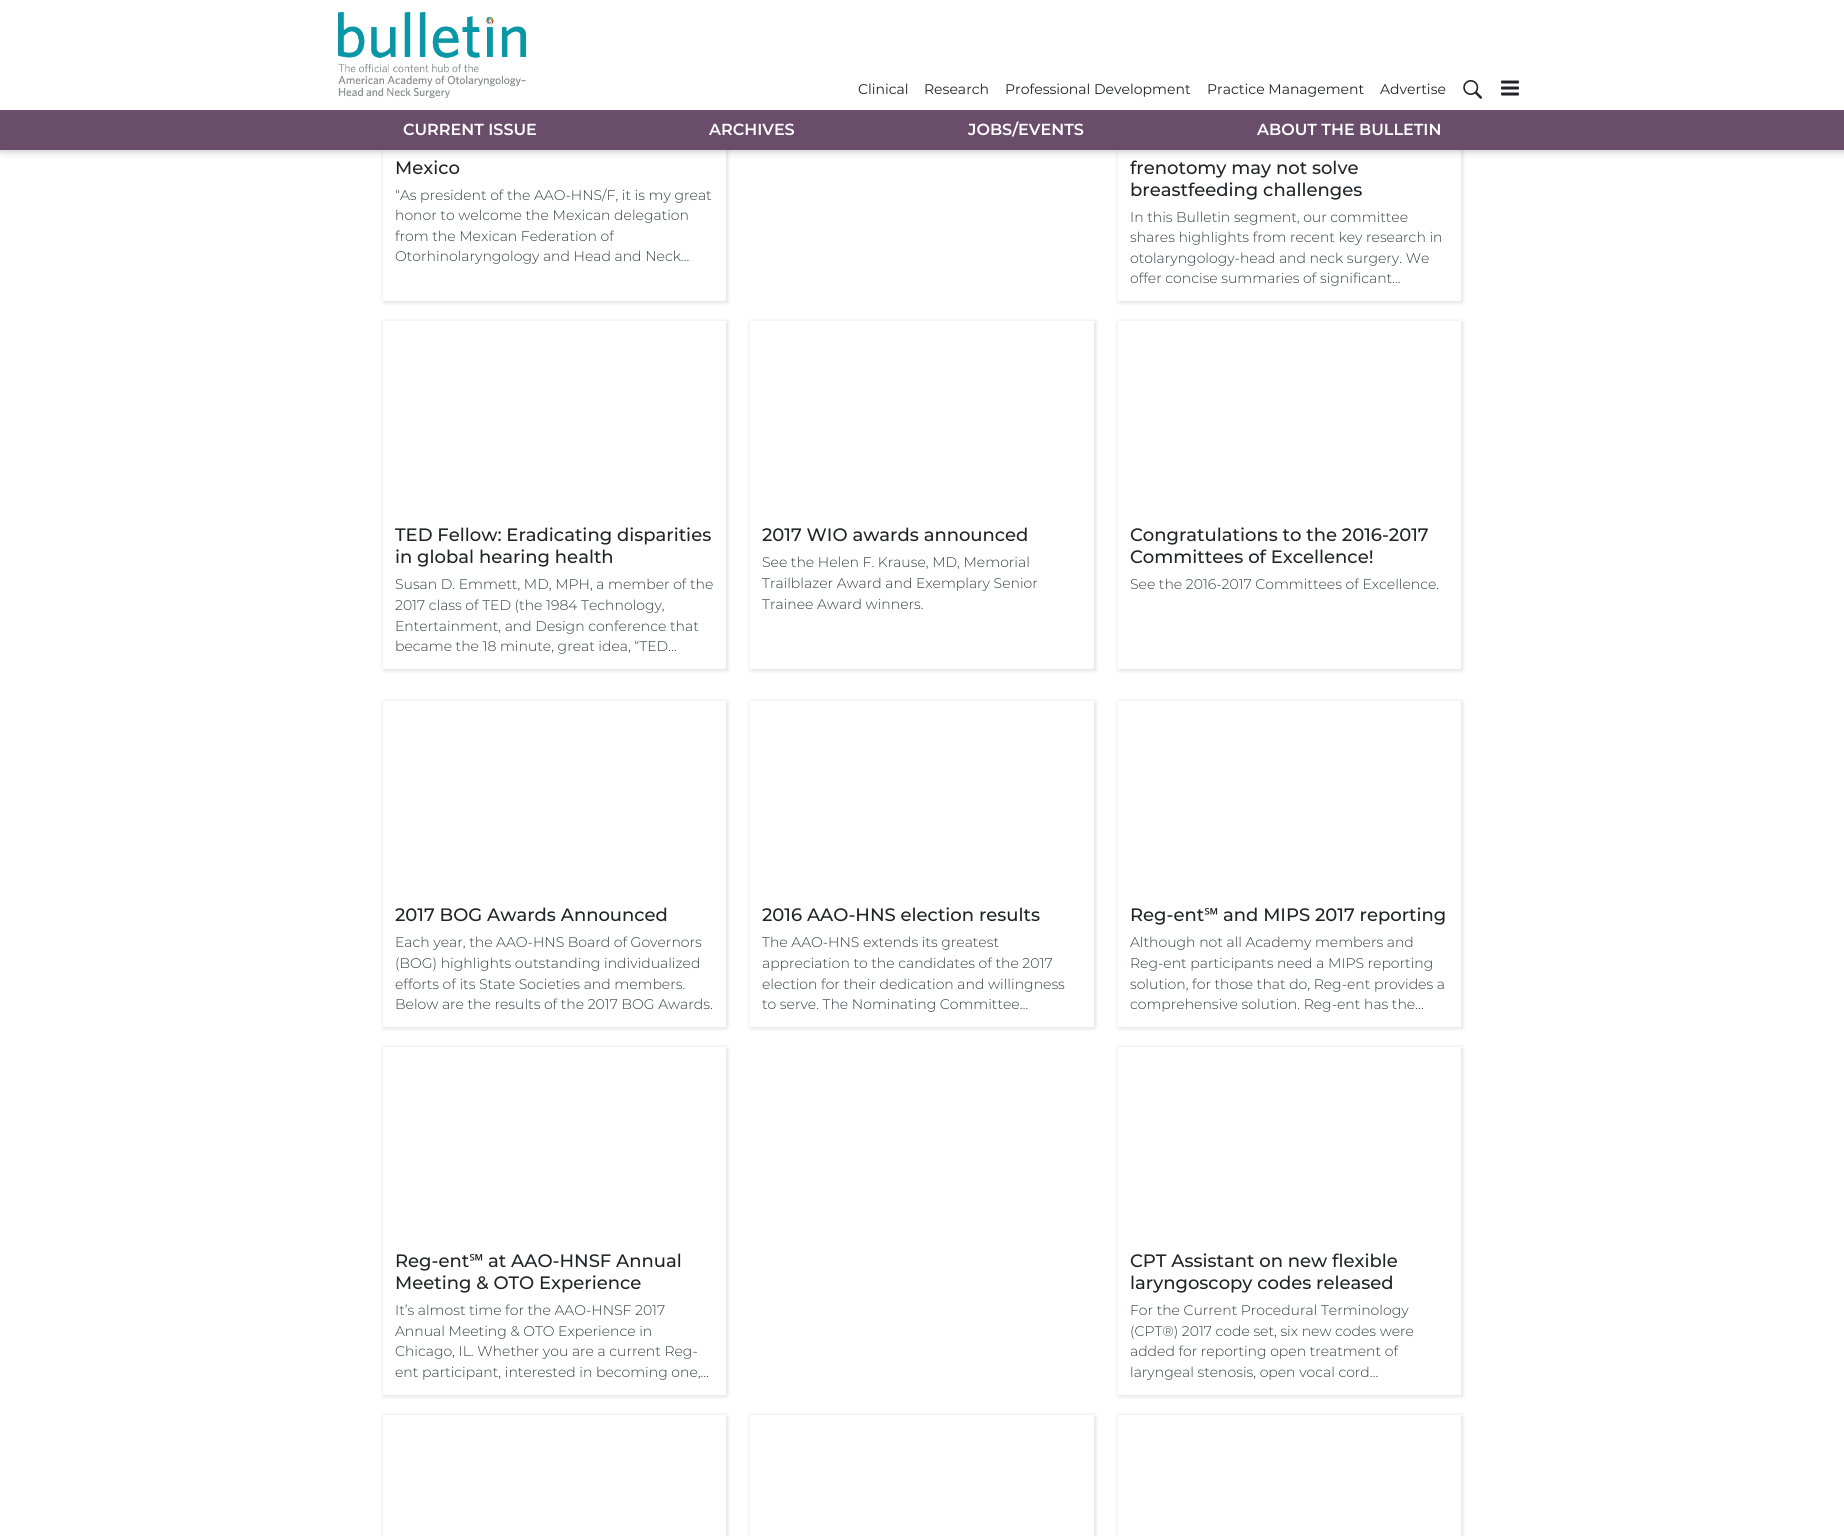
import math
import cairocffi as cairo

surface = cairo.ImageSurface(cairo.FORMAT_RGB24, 1844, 1536)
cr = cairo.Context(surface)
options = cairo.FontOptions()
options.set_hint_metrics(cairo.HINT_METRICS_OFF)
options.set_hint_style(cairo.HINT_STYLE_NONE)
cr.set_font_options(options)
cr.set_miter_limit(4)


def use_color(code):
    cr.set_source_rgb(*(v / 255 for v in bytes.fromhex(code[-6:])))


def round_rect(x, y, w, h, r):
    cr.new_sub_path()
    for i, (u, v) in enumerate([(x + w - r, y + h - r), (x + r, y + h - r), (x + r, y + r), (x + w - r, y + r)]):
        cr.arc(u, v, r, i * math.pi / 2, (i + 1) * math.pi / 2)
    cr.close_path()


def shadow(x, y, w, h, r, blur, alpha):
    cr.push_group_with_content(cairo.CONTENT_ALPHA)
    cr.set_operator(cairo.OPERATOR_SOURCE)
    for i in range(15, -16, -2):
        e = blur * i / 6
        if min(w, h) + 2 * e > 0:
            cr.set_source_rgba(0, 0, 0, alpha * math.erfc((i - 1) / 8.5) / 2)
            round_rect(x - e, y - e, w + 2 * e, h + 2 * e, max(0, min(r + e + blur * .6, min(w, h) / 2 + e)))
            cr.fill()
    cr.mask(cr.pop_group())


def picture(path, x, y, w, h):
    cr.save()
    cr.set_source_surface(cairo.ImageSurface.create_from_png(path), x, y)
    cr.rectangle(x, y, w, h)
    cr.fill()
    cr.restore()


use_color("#ffffff")
cr.paint()
use_color("#000000")
shadow(1, 1, 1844, 150, 0, 4, 0.25)
cr.save()
cr.set_fill_rule(cairo.FILL_RULE_EVEN_ODD)
cr.new_path()
cr.move_to(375, 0)
cr.line_to(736, 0)
cr.line_to(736, 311)
cr.line_to(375, 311)
cr.close_path()
cr.move_to(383, -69)
cr.line_to(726, -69)
cr.line_to(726, 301)
cr.line_to(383, 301)
cr.close_path()
cr.clip()
shadow(384, -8, 343, 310, 0, 2.5, 0.15)
cr.restore()
cr.save()
cr.set_fill_rule(cairo.FILL_RULE_EVEN_ODD)
cr.new_path()
cr.move_to(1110, 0)
cr.line_to(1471, 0)
cr.line_to(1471, 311)
cr.line_to(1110, 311)
cr.close_path()
cr.move_to(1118, -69)
cr.line_to(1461, -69)
cr.line_to(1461, 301)
cr.line_to(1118, 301)
cr.close_path()
cr.clip()
shadow(1119, -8, 343, 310, 0, 2.5, 0.15)
cr.restore()
use_color("#ffffff")
cr.rectangle(0, 0, 1844, 110)
cr.fill()
picture("img1.png", 338, 11, 189, 87)
cr.select_font_face("Montserrat")
cr.set_font_size(14)
use_color("#222328")
cr.move_to(858, 94)
cr.show_text("Clinical")
cr.move_to(924, 94)
cr.show_text("Research")
cr.move_to(1005, 94)
cr.show_text("Professional Development")
cr.move_to(1207, 94)
cr.show_text("Practice Management")
cr.move_to(1380, 94)
cr.show_text("Advertise")
picture("img2.png", 1463, 80, 19, 19)
picture("img3.png", 1501, 80, 18, 16)
use_color("#694d6b")
cr.rectangle(0, 110, 1844, 40)
cr.fill()
cr.select_font_face("Montserrat SemiBold")
cr.set_font_size(16)
use_color("#ffffff")
cr.move_to(403, 135)
cr.show_text("CURRENT ISSUE")
cr.move_to(709, 135)
cr.show_text("ARCHIVES")
cr.move_to(968, 135)
cr.show_text("JOBS/EVENTS")
cr.move_to(1257, 135)
cr.show_text("ABOUT THE BULLETIN")
cr.select_font_face("Montserrat Medium")
cr.set_font_size(18)
use_color("#222328")
cr.move_to(395, 174)
cr.show_text("Mexico")
cr.select_font_face("Montserrat Light")
cr.set_font_size(14)
use_color("#343a40")
cr.move_to(395, 200)
cr.show_text("“As president of the AAO-HNS/F, it is my great")
cr.move_to(395, 220)
cr.show_text("honor to welcome the Mexican delegation")
cr.move_to(395, 241)
cr.show_text("from the Mexican Federation of")
cr.move_to(395, 261)
cr.show_text("Otorhinolaryngology and Head and Neck…")
cr.select_font_face("Montserrat Medium")
cr.set_font_size(18)
use_color("#222328")
cr.move_to(1130, 174)
cr.show_text("frenotomy may not solve")
cr.move_to(1130, 196)
cr.show_text("breastfeeding challenges")
cr.select_font_face("Montserrat Light")
cr.set_font_size(14)
use_color("#343a40")
cr.move_to(1130, 222)
cr.show_text("In this Bulletin segment, our committee")
cr.move_to(1130, 242)
cr.show_text("shares highlights from recent key research in")
cr.move_to(1130, 263)
cr.show_text("otolaryngology-head and neck surgery. We")
cr.move_to(1130, 283)
cr.show_text("offer concise summaries of significant…")
cr.save()
cr.set_fill_rule(cairo.FILL_RULE_EVEN_ODD)
cr.new_path()
cr.move_to(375, 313)
cr.line_to(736, 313)
cr.line_to(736, 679)
cr.line_to(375, 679)
cr.close_path()
cr.move_to(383, 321)
cr.line_to(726, 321)
cr.line_to(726, 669)
cr.line_to(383, 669)
cr.close_path()
cr.clip()
use_color("#000000")
shadow(384, 322, 343, 348, 0, 2.5, 0.15)
cr.restore()
cr.select_font_face("Montserrat Medium")
cr.set_font_size(18)
use_color("#222328")
cr.move_to(395, 541)
cr.show_text("TED Fellow: Eradicating disparities")
cr.move_to(395, 563)
cr.show_text("in global hearing health")
cr.select_font_face("Montserrat Light")
cr.set_font_size(14)
use_color("#343a40")
cr.move_to(395, 589)
cr.show_text("Susan D. Emmett, MD, MPH, a member of the")
cr.move_to(395, 610)
cr.show_text("2017 class of TED (the 1984 Technology,")
cr.move_to(395, 631)
cr.show_text("Entertainment, and Design conference that")
cr.move_to(395, 651)
cr.show_text("became the 18 minute, great idea, “TED…")
cr.save()
cr.set_fill_rule(cairo.FILL_RULE_EVEN_ODD)
cr.new_path()
cr.move_to(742, 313)
cr.line_to(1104, 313)
cr.line_to(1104, 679)
cr.line_to(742, 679)
cr.close_path()
cr.move_to(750, 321)
cr.line_to(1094, 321)
cr.line_to(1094, 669)
cr.line_to(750, 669)
cr.close_path()
cr.clip()
use_color("#000000")
shadow(751, 322, 344, 348, 0, 2.5, 0.15)
cr.restore()
cr.select_font_face("Montserrat Medium")
cr.set_font_size(18)
use_color("#222328")
cr.move_to(762, 541)
cr.show_text("2017 WIO awards announced")
cr.select_font_face("Montserrat Light")
cr.set_font_size(14)
use_color("#343a40")
cr.move_to(762, 567)
cr.show_text("See the Helen F. Krause, MD, Memorial")
cr.move_to(762, 588)
cr.show_text("Trailblazer Award and Exemplary Senior")
cr.move_to(762, 609)
cr.show_text("Trainee Award winners.")
cr.save()
cr.set_fill_rule(cairo.FILL_RULE_EVEN_ODD)
cr.new_path()
cr.move_to(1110, 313)
cr.line_to(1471, 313)
cr.line_to(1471, 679)
cr.line_to(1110, 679)
cr.close_path()
cr.move_to(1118, 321)
cr.line_to(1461, 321)
cr.line_to(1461, 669)
cr.line_to(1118, 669)
cr.close_path()
cr.clip()
use_color("#000000")
shadow(1119, 322, 343, 348, 0, 2.5, 0.15)
cr.restore()
cr.select_font_face("Montserrat Medium")
cr.set_font_size(18)
use_color("#222328")
cr.move_to(1130, 541)
cr.show_text("Congratulations to the 2016-2017")
cr.move_to(1130, 563)
cr.show_text("Committees of Excellence!")
cr.select_font_face("Montserrat Light")
cr.set_font_size(14)
use_color("#343a40")
cr.move_to(1130, 589)
cr.show_text("See the 2016-2017 Committees of Excellence.")
cr.save()
cr.set_fill_rule(cairo.FILL_RULE_EVEN_ODD)
cr.new_path()
cr.move_to(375, 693)
cr.line_to(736, 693)
cr.line_to(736, 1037)
cr.line_to(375, 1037)
cr.close_path()
cr.move_to(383, 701)
cr.line_to(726, 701)
cr.line_to(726, 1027)
cr.line_to(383, 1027)
cr.close_path()
cr.clip()
use_color("#000000")
shadow(384, 702, 343, 326, 0, 2.5, 0.15)
cr.restore()
cr.select_font_face("Montserrat Medium")
cr.set_font_size(18)
use_color("#222328")
cr.move_to(395, 921)
cr.show_text("2017 BOG Awards Announced")
cr.select_font_face("Montserrat Light")
cr.set_font_size(14)
use_color("#343a40")
cr.move_to(395, 947)
cr.show_text("Each year, the AAO-HNS Board of Governors")
cr.move_to(395, 968)
cr.show_text("(BOG) highlights outstanding individualized")
cr.move_to(395, 989)
cr.show_text("efforts of its State Societies and members.")
cr.move_to(395, 1009)
cr.show_text("Below are the results of the 2017 BOG Awards.")
cr.save()
cr.set_fill_rule(cairo.FILL_RULE_EVEN_ODD)
cr.new_path()
cr.move_to(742, 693)
cr.line_to(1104, 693)
cr.line_to(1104, 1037)
cr.line_to(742, 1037)
cr.close_path()
cr.move_to(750, 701)
cr.line_to(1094, 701)
cr.line_to(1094, 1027)
cr.line_to(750, 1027)
cr.close_path()
cr.clip()
use_color("#000000")
shadow(751, 702, 344, 326, 0, 2.5, 0.15)
cr.restore()
cr.select_font_face("Montserrat Medium")
cr.set_font_size(18)
use_color("#222328")
cr.move_to(762, 921)
cr.show_text("2016 AAO-HNS election results")
cr.select_font_face("Montserrat Light")
cr.set_font_size(14)
use_color("#343a40")
cr.move_to(762, 947)
cr.show_text("The AAO-HNS extends its greatest")
cr.move_to(762, 968)
cr.show_text("appreciation to the candidates of the 2017")
cr.move_to(762, 989)
cr.show_text("election for their dedication and willingness")
cr.move_to(762, 1009)
cr.show_text("to serve. The Nominating Committee…")
cr.save()
cr.set_fill_rule(cairo.FILL_RULE_EVEN_ODD)
cr.new_path()
cr.move_to(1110, 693)
cr.line_to(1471, 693)
cr.line_to(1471, 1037)
cr.line_to(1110, 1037)
cr.close_path()
cr.move_to(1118, 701)
cr.line_to(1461, 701)
cr.line_to(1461, 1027)
cr.line_to(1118, 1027)
cr.close_path()
cr.clip()
use_color("#000000")
shadow(1119, 702, 343, 326, 0, 2.5, 0.15)
cr.restore()
cr.select_font_face("Montserrat Medium")
cr.set_font_size(18)
use_color("#222328")
cr.move_to(1130, 921)
cr.show_text("Reg-ent")
cr.select_font_face("Noto Sans Medium")
cr.move_to(1204, 921)
cr.show_text("℠")
cr.select_font_face("Montserrat Medium")
cr.move_to(1223, 921)
cr.show_text("and MIPS 2017 reporting")
cr.select_font_face("Montserrat Light")
cr.set_font_size(14)
use_color("#343a40")
cr.move_to(1130, 947)
cr.show_text("Although not all Academy members and")
cr.move_to(1130, 968)
cr.show_text("Reg-ent participants need a MIPS reporting")
cr.move_to(1130, 989)
cr.show_text("solution, for those that do, Reg-ent provides a")
cr.move_to(1130, 1009)
cr.show_text("comprehensive solution. Reg-ent has the…")
cr.save()
cr.set_fill_rule(cairo.FILL_RULE_EVEN_ODD)
cr.new_path()
cr.move_to(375, 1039)
cr.line_to(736, 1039)
cr.line_to(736, 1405)
cr.line_to(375, 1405)
cr.close_path()
cr.move_to(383, 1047)
cr.line_to(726, 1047)
cr.line_to(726, 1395)
cr.line_to(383, 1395)
cr.close_path()
cr.clip()
use_color("#000000")
shadow(384, 1048, 343, 348, 0, 2.5, 0.15)
cr.restore()
cr.select_font_face("Montserrat Medium")
cr.set_font_size(18)
use_color("#222328")
cr.move_to(395, 1267)
cr.show_text("Reg-ent")
cr.select_font_face("Noto Sans Medium")
cr.move_to(469, 1267)
cr.show_text("℠")
cr.select_font_face("Montserrat Medium")
cr.move_to(488, 1267)
cr.show_text("at AAO-HNSF Annual")
cr.move_to(395, 1289)
cr.show_text("Meeting & OTO Experience")
cr.select_font_face("Montserrat Light")
cr.set_font_size(14)
use_color("#343a40")
cr.move_to(395, 1315)
cr.show_text("It’s almost time for the AAO-HNSF 2017")
cr.move_to(395, 1336)
cr.show_text("Annual Meeting & OTO Experience in")
cr.move_to(395, 1356)
cr.show_text("Chicago, IL. Whether you are a current Reg-")
cr.move_to(395, 1377)
cr.show_text("ent participant, interested in becoming one,…")
cr.save()
cr.set_fill_rule(cairo.FILL_RULE_EVEN_ODD)
cr.new_path()
cr.move_to(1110, 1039)
cr.line_to(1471, 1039)
cr.line_to(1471, 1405)
cr.line_to(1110, 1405)
cr.close_path()
cr.move_to(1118, 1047)
cr.line_to(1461, 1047)
cr.line_to(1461, 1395)
cr.line_to(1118, 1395)
cr.close_path()
cr.clip()
use_color("#000000")
shadow(1119, 1048, 343, 348, 0, 2.5, 0.15)
cr.restore()
cr.select_font_face("Montserrat Medium")
cr.set_font_size(18)
use_color("#222328")
cr.move_to(1130, 1267)
cr.show_text("CPT Assistant on new flexible")
cr.move_to(1130, 1289)
cr.show_text("laryngoscopy codes released")
cr.select_font_face("Montserrat Light")
cr.set_font_size(14)
use_color("#343a40")
cr.move_to(1130, 1315)
cr.show_text("For the Current Procedural Terminology")
cr.move_to(1130, 1336)
cr.show_text("(CPT®) 2017 code set, six new codes were")
cr.move_to(1130, 1356)
cr.show_text("added for reporting open treatment of")
cr.move_to(1130, 1377)
cr.show_text("laryngeal stenosis, open vocal cord…")
cr.save()
cr.set_fill_rule(cairo.FILL_RULE_EVEN_ODD)
cr.new_path()
cr.move_to(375, 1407)
cr.line_to(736, 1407)
cr.line_to(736, 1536)
cr.line_to(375, 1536)
cr.close_path()
cr.move_to(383, 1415)
cr.line_to(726, 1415)
cr.line_to(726, 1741)
cr.line_to(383, 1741)
cr.close_path()
cr.clip()
use_color("#000000")
shadow(384, 1416, 343, 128, 0, 2.5, 0.15)
cr.restore()
cr.save()
cr.set_fill_rule(cairo.FILL_RULE_EVEN_ODD)
cr.new_path()
cr.move_to(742, 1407)
cr.line_to(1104, 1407)
cr.line_to(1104, 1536)
cr.line_to(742, 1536)
cr.close_path()
cr.move_to(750, 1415)
cr.line_to(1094, 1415)
cr.line_to(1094, 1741)
cr.line_to(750, 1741)
cr.close_path()
cr.clip()
use_color("#000000")
shadow(751, 1416, 344, 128, 0, 2.5, 0.15)
cr.restore()
cr.save()
cr.set_fill_rule(cairo.FILL_RULE_EVEN_ODD)
cr.new_path()
cr.move_to(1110, 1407)
cr.line_to(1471, 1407)
cr.line_to(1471, 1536)
cr.line_to(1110, 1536)
cr.close_path()
cr.move_to(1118, 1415)
cr.line_to(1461, 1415)
cr.line_to(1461, 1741)
cr.line_to(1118, 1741)
cr.close_path()
cr.clip()
use_color("#000000")
shadow(1119, 1416, 343, 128, 0, 2.5, 0.15)
cr.restore()
surface.write_to_png("result.png")
